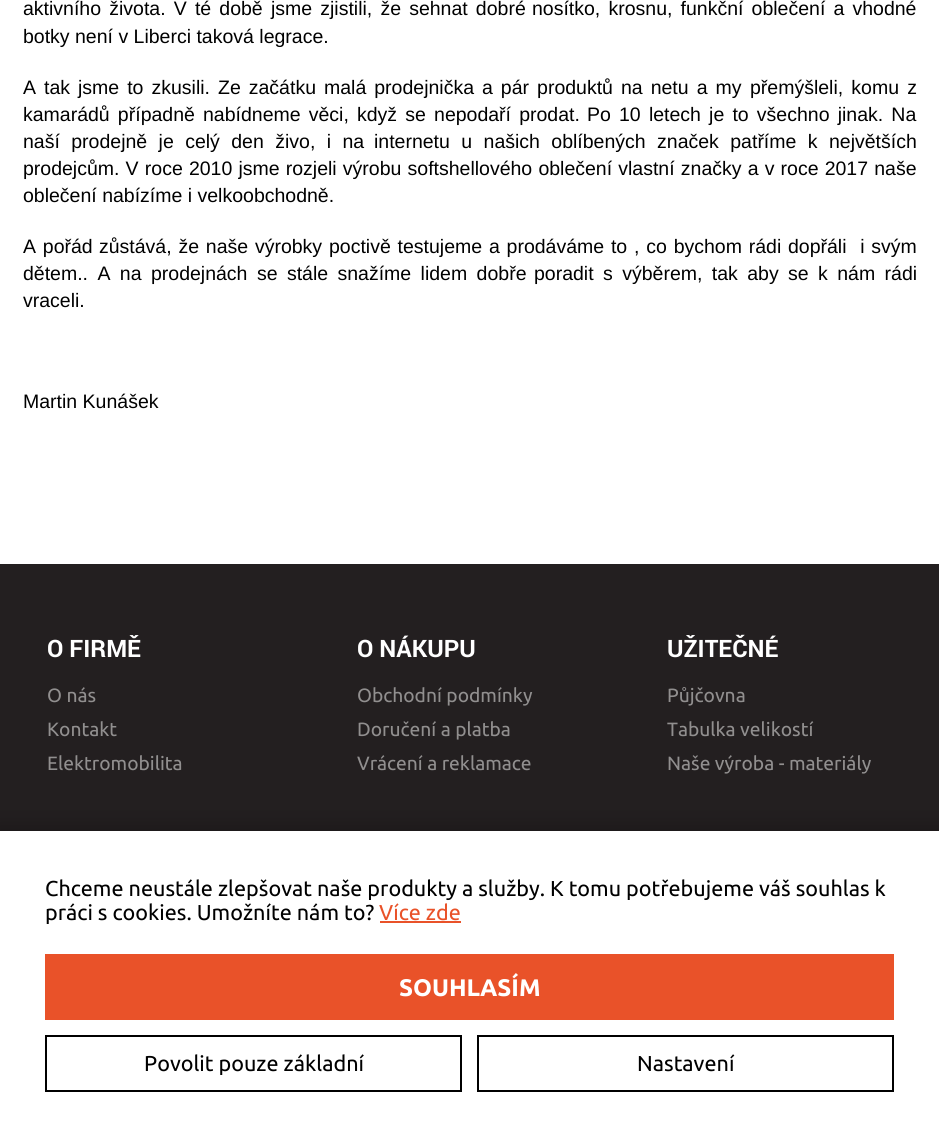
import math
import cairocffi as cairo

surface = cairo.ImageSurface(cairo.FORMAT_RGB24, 939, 1136)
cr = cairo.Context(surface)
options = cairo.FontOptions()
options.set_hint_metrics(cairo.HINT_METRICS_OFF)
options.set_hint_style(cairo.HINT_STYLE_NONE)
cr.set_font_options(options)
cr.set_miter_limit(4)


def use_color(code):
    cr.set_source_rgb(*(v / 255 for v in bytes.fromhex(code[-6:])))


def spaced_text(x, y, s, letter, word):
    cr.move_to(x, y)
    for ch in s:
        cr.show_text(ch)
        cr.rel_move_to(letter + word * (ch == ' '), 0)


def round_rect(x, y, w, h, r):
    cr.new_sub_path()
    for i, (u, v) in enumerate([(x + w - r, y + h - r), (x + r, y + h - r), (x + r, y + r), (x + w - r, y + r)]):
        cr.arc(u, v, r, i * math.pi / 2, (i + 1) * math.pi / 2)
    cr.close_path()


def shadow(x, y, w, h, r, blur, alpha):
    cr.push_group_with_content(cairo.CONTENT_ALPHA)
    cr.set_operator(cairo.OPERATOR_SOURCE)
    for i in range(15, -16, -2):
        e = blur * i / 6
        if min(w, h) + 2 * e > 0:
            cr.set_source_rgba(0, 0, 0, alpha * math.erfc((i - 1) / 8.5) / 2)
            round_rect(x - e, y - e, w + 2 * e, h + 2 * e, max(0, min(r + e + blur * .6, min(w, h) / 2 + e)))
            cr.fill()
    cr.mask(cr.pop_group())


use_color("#ffffff")
cr.paint()
cr.select_font_face("Liberation Sans")
cr.set_font_size(19.5)
use_color("#000000")
spaced_text(23, 15, "aktivního života. V té době jsme zjistili, že sehnat dobré", 0, 2.75)
spaced_text(532, 15, "nosítko, krosnu, funkční oblečení a vhodné", 0, 2.75)
cr.move_to(23, 43)
cr.show_text("botky není v Liberci taková legrace.")
spaced_text(23, 94, "A tak", 0, 2.6)
spaced_text(78, 94, "jsme to zkusili. Ze začátku malá prodejnička a pár produktů na netu a my", 0, 2.6)
spaced_text(750, 94, "přemýšleli, komu z", 0, 2.75)
spaced_text(23, 121, "kamarádů případně nabídneme věci, když se nepodaří prodat.", 0, 2.75)
spaced_text(587, 121, "Po 10 letech je to všechno jinak. Na", 0, 2.75)
spaced_text(23, 148, "naší prodejně je celý den živo, i na", 0, 6)
spaced_text(374, 148, "internetu u našich oblíbených značek patříme k největších", 0, 6)
spaced_text(23, 175, "prodejcům. V roce 2010 jsme rozjeli výrobu softshellového oblečení vlastní značky a v roce 2017 naše", 0, 0.75)
cr.move_to(23, 202)
cr.show_text("oblečení nabízíme i velkoobchodně.")
spaced_text(23, 253, "A pořád", 0, 1.4)
spaced_text(99, 253, "zůstává, že naše výrobky poctivě testujeme a prodáváme to , co bychom rádi", 0, 1.4)
spaced_text(788, 253, "dopřáli  i svým", 0, 1.4)
spaced_text(23, 280, "dětem.. A na prodejnách se stále snažíme lidem dobře", 0, 4)
spaced_text(534, 280, "poradit s výběrem, tak aby se k nám rádi", 0, 4)
cr.move_to(23, 307)
cr.show_text("vraceli.")
cr.move_to(23, 408)
cr.show_text("Martin Kunášek")
use_color("#231f20")
cr.rectangle(0, 564, 939, 267)
cr.fill()
cr.select_font_face("Roboto", cairo.FONT_SLANT_NORMAL, cairo.FONT_WEIGHT_BOLD)
cr.set_font_size(24)
use_color("#ffffff")
cr.move_to(47, 657)
cr.show_text("O FIRMĚ")
cr.select_font_face("Ubuntu")
cr.set_font_size(19.25)
use_color("#918f8f")
cr.move_to(47, 702)
cr.show_text("O nás")
cr.move_to(47, 736)
cr.show_text("Kontakt")
cr.move_to(47, 770)
cr.show_text("Elektromobilita")
cr.select_font_face("Roboto", cairo.FONT_SLANT_NORMAL, cairo.FONT_WEIGHT_BOLD)
cr.set_font_size(24)
use_color("#ffffff")
cr.move_to(357, 657)
cr.show_text("O NÁKUPU")
cr.select_font_face("Ubuntu")
cr.set_font_size(19.25)
use_color("#918f8f")
cr.move_to(357, 702)
cr.show_text("Obchodní podmínky")
cr.move_to(357, 736)
cr.show_text("Doručení a platba")
cr.move_to(357, 770)
cr.show_text("Vrácení a reklamace")
cr.select_font_face("Roboto", cairo.FONT_SLANT_NORMAL, cairo.FONT_WEIGHT_BOLD)
cr.set_font_size(24)
use_color("#ffffff")
cr.move_to(667, 657)
cr.show_text("UŽITEČNÉ")
cr.select_font_face("Ubuntu")
cr.set_font_size(19.25)
use_color("#918f8f")
cr.move_to(667, 702)
cr.show_text("Půjčovna")
cr.move_to(667, 736)
cr.show_text("Tabulka velikostí")
cr.move_to(667, 770)
cr.show_text("Naše výroba - materiály")
use_color("#000000")
shadow(-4, 827, 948, 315, 0, 11, 0.25)
use_color("#ffffff")
cr.rectangle(0, 831, 939, 305)
cr.fill()
cr.set_font_size(21.6)
use_color("#000000")
cr.move_to(45, 896)
cr.show_text("Chceme neustále zlepšovat naše produkty a služby. K tomu potřebujeme váš souhlas k")
cr.move_to(45, 920)
cr.show_text("práci s cookies. Umožníte nám to?")
use_color("#e95229")
cr.move_to(379, 920)
cr.show_text("Více zde")
cr.rectangle(380, 921, 81, 2)
cr.fill()
cr.rectangle(45, 954, 849, 66)
cr.fill()
cr.select_font_face("Ubuntu", cairo.FONT_SLANT_NORMAL, cairo.FONT_WEIGHT_BOLD)
cr.set_font_size(24)
use_color("#ffffff")
cr.move_to(399, 996)
cr.show_text("SOUHLASÍM")
cr.rectangle(46, 1036, 415, 55)
use_color("#000000")
cr.stroke()
cr.select_font_face("Ubuntu")
cr.set_font_size(21.6)
cr.move_to(144, 1071)
cr.show_text("Povolit pouze základní")
cr.rectangle(478, 1036, 415, 55)
cr.stroke()
cr.move_to(637, 1071)
cr.show_text("Nastavení")
surface.write_to_png("result.png")
